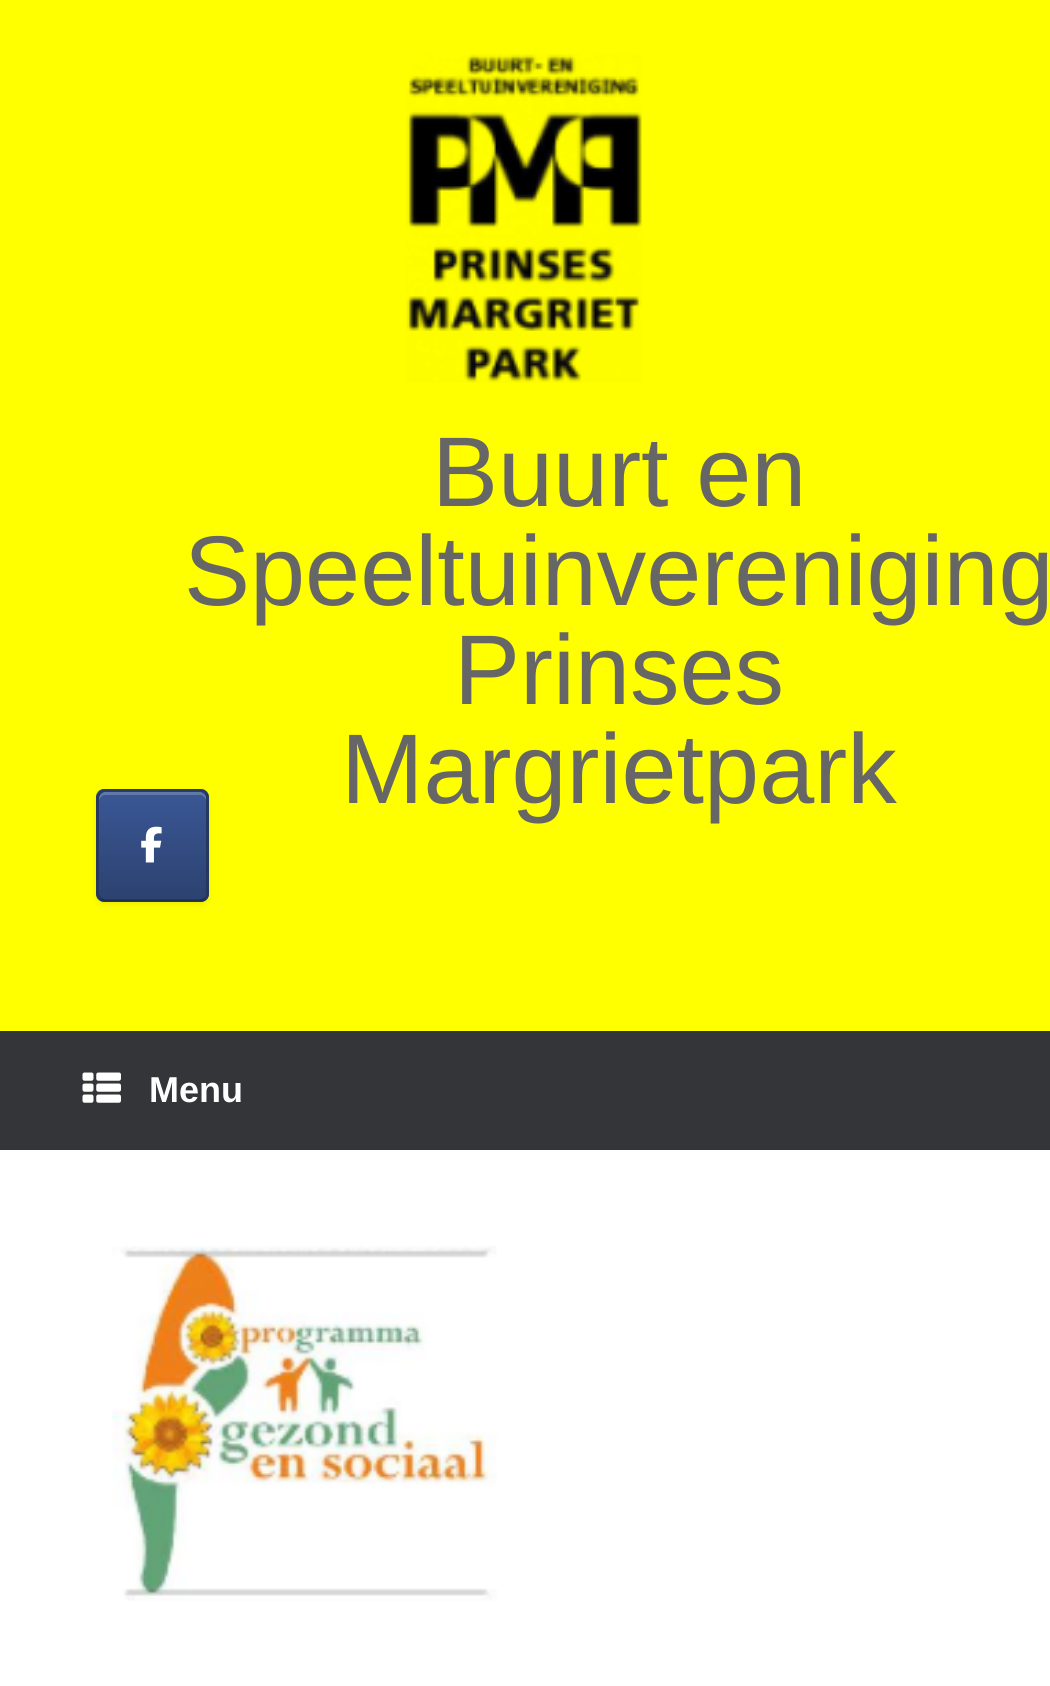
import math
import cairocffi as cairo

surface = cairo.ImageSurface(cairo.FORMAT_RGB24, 1050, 1686)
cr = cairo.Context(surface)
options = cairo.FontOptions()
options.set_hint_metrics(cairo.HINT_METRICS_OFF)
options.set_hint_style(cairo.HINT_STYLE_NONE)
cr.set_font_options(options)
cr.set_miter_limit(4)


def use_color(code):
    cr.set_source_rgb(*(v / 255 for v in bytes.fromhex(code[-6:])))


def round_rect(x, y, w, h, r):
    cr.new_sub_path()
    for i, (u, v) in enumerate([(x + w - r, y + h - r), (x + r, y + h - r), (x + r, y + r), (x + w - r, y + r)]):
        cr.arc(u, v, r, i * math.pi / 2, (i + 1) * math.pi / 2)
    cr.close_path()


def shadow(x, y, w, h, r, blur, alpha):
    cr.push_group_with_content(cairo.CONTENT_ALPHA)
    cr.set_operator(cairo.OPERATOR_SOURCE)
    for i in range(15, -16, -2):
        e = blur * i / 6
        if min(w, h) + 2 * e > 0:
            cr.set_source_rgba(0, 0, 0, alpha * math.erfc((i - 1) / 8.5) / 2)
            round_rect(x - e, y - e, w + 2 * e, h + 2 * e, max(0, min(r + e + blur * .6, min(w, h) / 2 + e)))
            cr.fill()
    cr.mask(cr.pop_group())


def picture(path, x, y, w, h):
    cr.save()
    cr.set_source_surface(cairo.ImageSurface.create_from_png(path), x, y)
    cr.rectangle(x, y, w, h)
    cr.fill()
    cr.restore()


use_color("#ffff00")
cr.paint()
picture("img1.png", 406, 54, 236, 329)
cr.select_font_face("Liberation Sans")
cr.set_font_size(99)
use_color("#666666")
cr.move_to(432, 506)
cr.show_text("Buurt en")
cr.move_to(184, 605)
cr.show_text("Speeltuinvereniging")
cr.move_to(454, 704)
cr.show_text("Prinses")
cr.move_to(341, 803)
cr.show_text("Margrietpark")
use_color("#000000")
shadow(96, 792, 113, 113, 8, 3, 0.07)
cr.save()
round_rect(96, 789, 113, 113, 8)
cr.clip()
gradient = cairo.LinearGradient(99, 792, 99, 685)
gradient.add_color_stop_rgba(0, 0.173, 0.259, 0.439, 1)
gradient.add_color_stop_rgba(1, 0.227, 0.341, 0.584, 1)
cr.set_source(gradient)
cr.rectangle(96, 789, 113, 3)
cr.fill()
gradient = cairo.LinearGradient(99, 899, 99, 792)
gradient.add_color_stop_rgba(0, 0.173, 0.259, 0.439, 1)
gradient.add_color_stop_rgba(1, 0.227, 0.341, 0.584, 1)
cr.set_source(gradient)
cr.rectangle(96, 792, 113, 107)
cr.fill()
gradient = cairo.LinearGradient(99, 1007, 99, 899)
gradient.add_color_stop_rgba(0, 0.173, 0.259, 0.439, 1)
gradient.add_color_stop_rgba(1, 0.227, 0.341, 0.584, 1)
cr.set_source(gradient)
cr.rectangle(96, 899, 113, 3)
cr.fill()
cr.restore()
use_color("#6179aa")
cr.new_path()
cr.move_to(105, 795)
cr.line_to(200, 795)
cr.curve_to(203, 795, 206, 798, 206, 801)
cr.line_to(206, 798)
cr.curve_to(206, 795, 203, 792, 200, 792)
cr.line_to(105, 792)
cr.curve_to(102, 792, 99, 795, 99, 798)
cr.line_to(99, 801)
cr.curve_to(99, 798, 102, 795, 105, 795)
cr.close_path()
cr.fill()
cr.new_path()
cr.move_to(100, 793)
cr.curve_to(101.5, 791.5, 103, 790.5, 105, 790.5)
cr.line_to(200, 790.5)
cr.curve_to(202, 790.5, 204, 791.5, 205.5, 793)
use_color("#273b65")
cr.set_line_width(2.8)
cr.stroke()
cr.new_path()
cr.move_to(205.5, 793)
cr.curve_to(207, 794.5, 207.5, 796, 207.5, 798)
cr.line_to(207.5, 893)
cr.curve_to(207.5, 895, 207, 897, 205.5, 898.5)
use_color("#25375e")
cr.stroke()
cr.new_path()
cr.move_to(205.5, 898.5)
cr.curve_to(204, 900, 202, 900.5, 200, 900.5)
cr.line_to(105, 900.5)
cr.curve_to(103, 900.5, 101.5, 900, 100, 898.5)
use_color("#203053")
cr.stroke()
cr.new_path()
cr.move_to(100, 898.5)
cr.curve_to(98.5, 897, 97.5, 895, 97.5, 893)
cr.line_to(97.5, 798)
cr.curve_to(97.5, 796, 98.5, 794.5, 100, 793)
use_color("#25375e")
cr.stroke()
picture("img2.png", 141, 826, 21, 37)
use_color("#343538")
cr.rectangle(0, 1031, 1050, 119)
cr.fill()
picture("img3.png", 82, 1072, 39, 31)
cr.select_font_face("Liberation Sans", cairo.FONT_SLANT_NORMAL, cairo.FONT_WEIGHT_BOLD)
cr.set_font_size(36)
use_color("#ffffff")
cr.move_to(149, 1102)
cr.show_text("Menu")
cr.rectangle(0, 1150, 1050, 536)
cr.fill()
picture("img4.png", 112, 1246, 385, 355)
surface.write_to_png("result.png")
